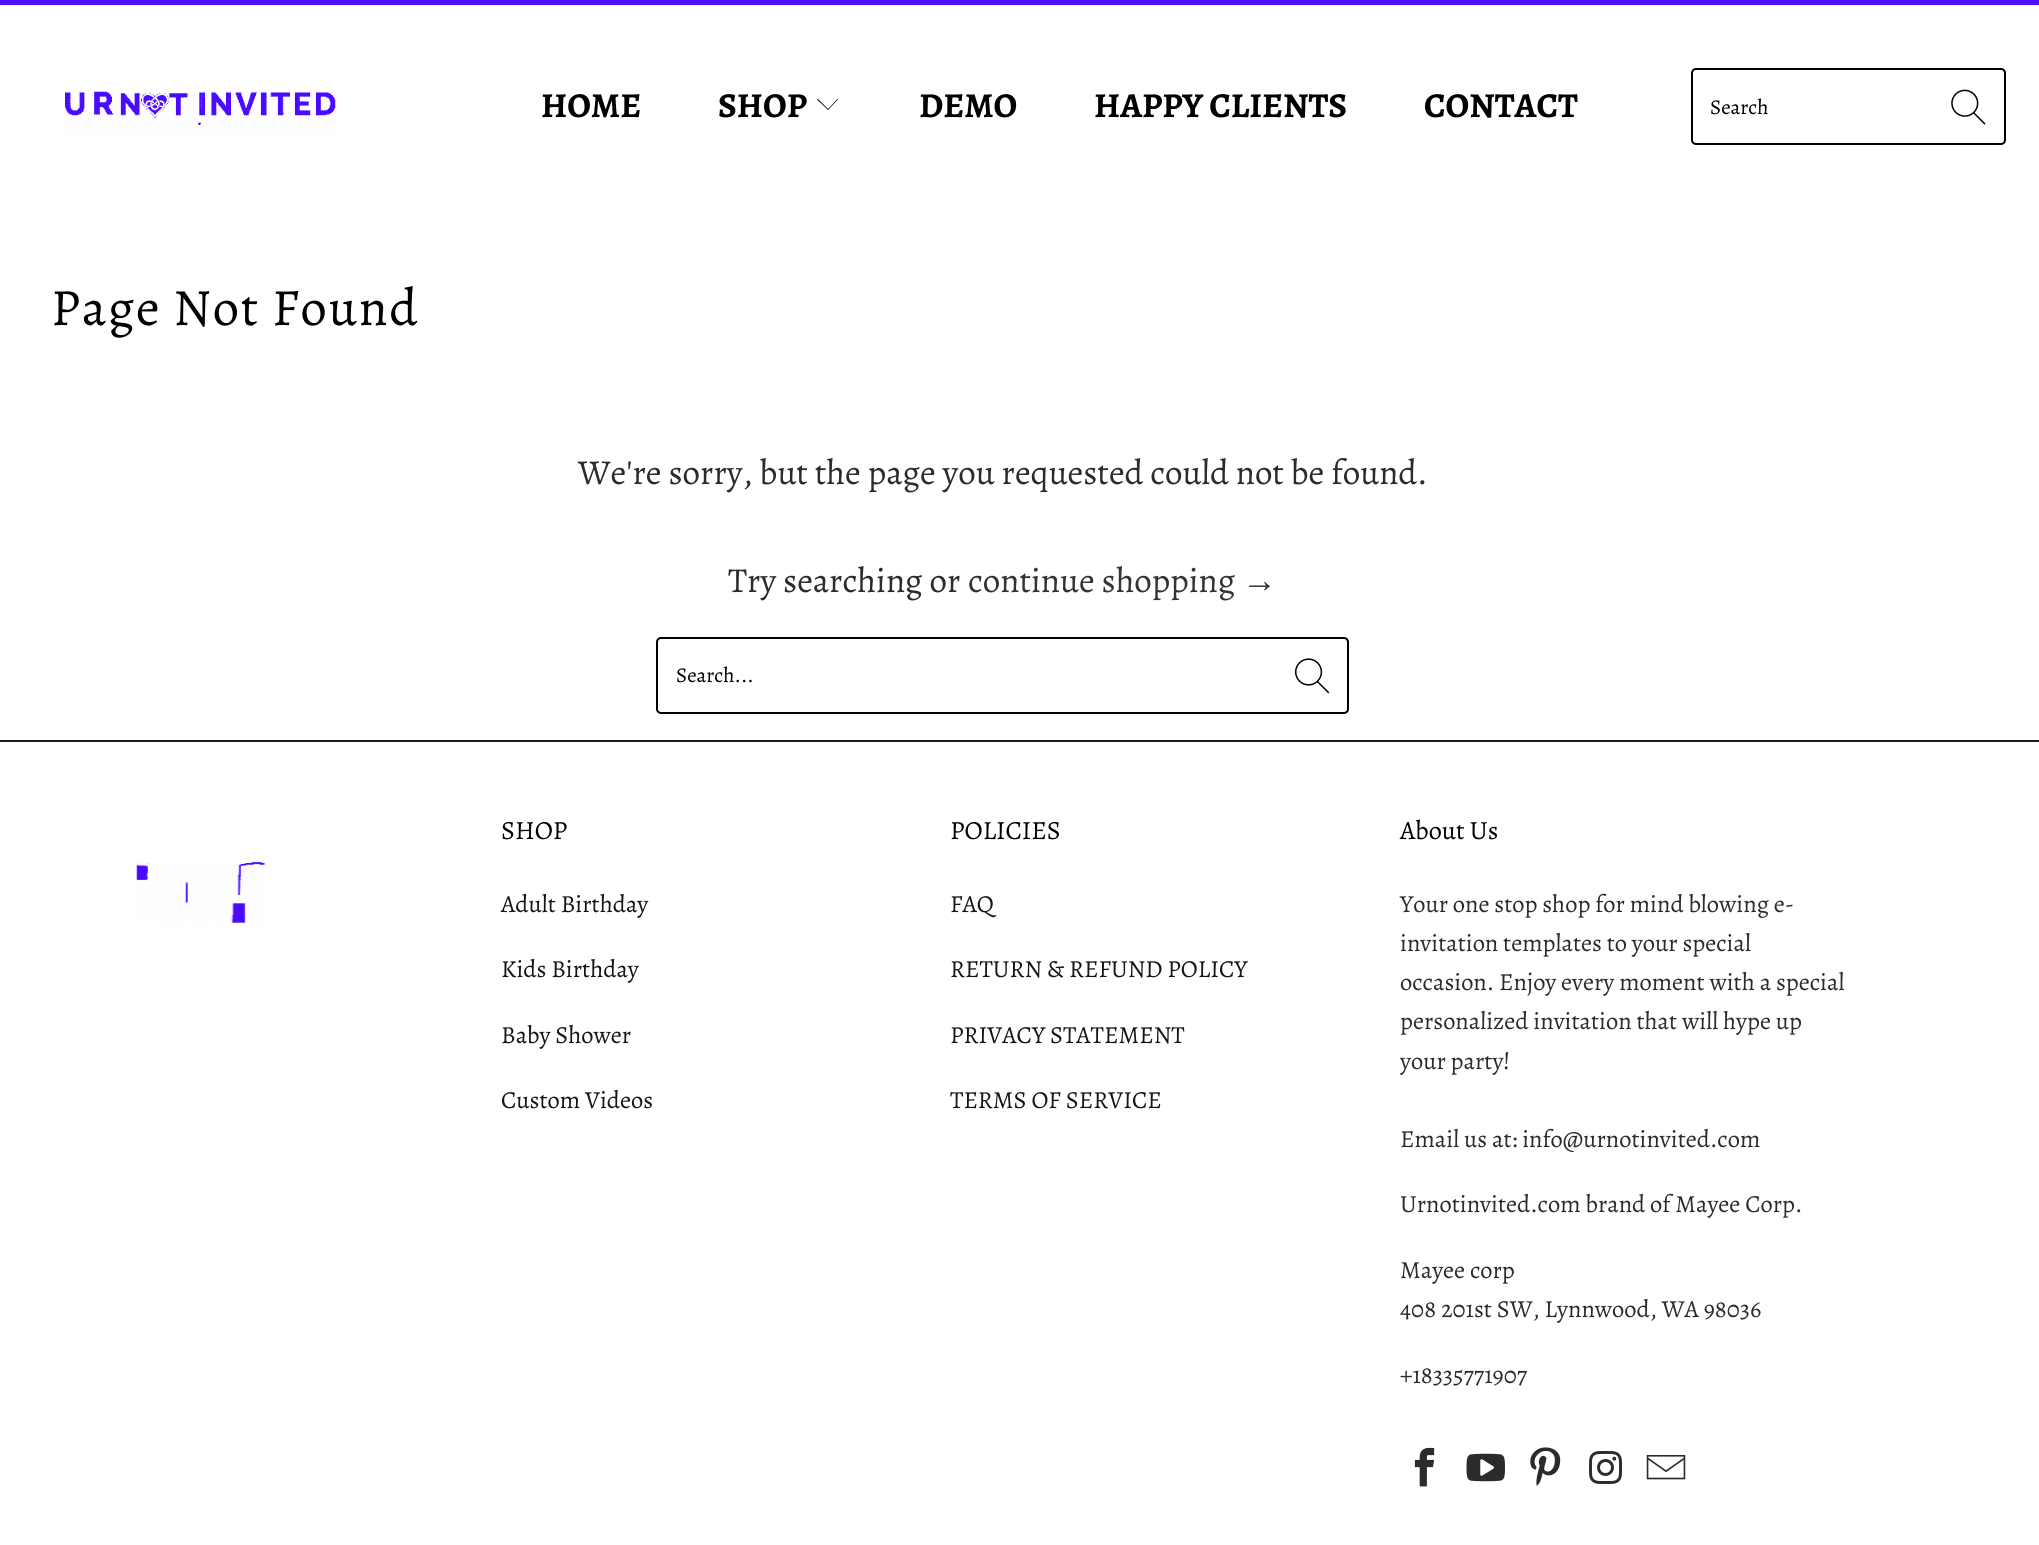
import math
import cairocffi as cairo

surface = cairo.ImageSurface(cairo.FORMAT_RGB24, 2039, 1545)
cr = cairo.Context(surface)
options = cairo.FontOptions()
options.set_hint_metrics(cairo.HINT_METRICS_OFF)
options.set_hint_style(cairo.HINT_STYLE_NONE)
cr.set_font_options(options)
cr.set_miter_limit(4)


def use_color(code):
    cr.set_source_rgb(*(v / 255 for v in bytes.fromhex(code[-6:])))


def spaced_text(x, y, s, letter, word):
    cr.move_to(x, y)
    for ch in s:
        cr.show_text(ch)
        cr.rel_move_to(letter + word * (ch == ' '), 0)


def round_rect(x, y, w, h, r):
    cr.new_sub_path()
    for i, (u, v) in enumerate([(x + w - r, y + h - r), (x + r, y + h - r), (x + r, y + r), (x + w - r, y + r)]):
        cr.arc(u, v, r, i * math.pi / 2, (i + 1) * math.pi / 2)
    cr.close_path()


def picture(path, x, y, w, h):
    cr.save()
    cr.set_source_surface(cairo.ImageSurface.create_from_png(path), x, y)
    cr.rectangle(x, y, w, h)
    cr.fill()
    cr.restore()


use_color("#ffffff")
cr.paint()
use_color("#4a0efb")
cr.rectangle(0, 0, 2039, 5)
cr.fill()
picture("img1.png", 65, 91, 271, 46)
cr.select_font_face("Alegreya", cairo.FONT_SLANT_NORMAL, cairo.FONT_WEIGHT_BOLD)
cr.set_font_size(35)
use_color("#000000")
cr.move_to(541, 117)
cr.show_text("HOME")
cr.move_to(718, 117)
cr.show_text("SHOP")
cr.new_path()
cr.move_to(828, 110)
cr.line_to(817, 99.5)
cr.line_to(818, 99)
cr.line_to(828, 109)
cr.line_to(837.5, 99)
cr.line_to(838, 99.5)
cr.close_path()
cr.fill()
cr.move_to(919, 117)
cr.show_text("DEMO")
cr.move_to(1094, 117)
cr.show_text("HAPPY CLIENTS")
cr.move_to(1424, 117)
cr.show_text("CONTACT")
round_rect(1692, 69, 313, 75, 4)
cr.stroke()
cr.select_font_face("Alegreya")
cr.set_font_size(21)
cr.move_to(1710, 114)
cr.show_text("Search")
picture("img2.png", 1951, 89, 35, 36)
cr.set_font_size(52.5)
spaced_text(51, 325, "Page Not Found", 1.75, 0)
cr.set_font_size(35)
use_color("#2b2b2b")
cr.move_to(578, 484)
cr.show_text("We're sorry, but the page you requested could not be found.")
cr.move_to(728, 592)
cr.show_text("Try searching or")
use_color("#333333")
cr.move_to(968, 592)
cr.show_text("continue shopping")
cr.select_font_face("Liberation Serif")
cr.move_to(1242, 592)
cr.show_text("→")
round_rect(657, 638, 691, 75, 4)
use_color("#000000")
cr.stroke()
cr.select_font_face("Alegreya")
cr.set_font_size(21)
cr.move_to(676, 682)
cr.show_text("Search...")
picture("img3.png", 1294, 658, 36, 36)
use_color("#1b1f23")
cr.rectangle(0, 740, 2039, 2)
cr.fill()
picture("img4.png", 136, 862, 129, 61)
cr.set_font_size(26.25)
use_color("#000000")
cr.move_to(501, 839)
cr.show_text("SHOP")
cr.set_font_size(24.5)
use_color("#151515")
cr.move_to(501, 912)
cr.show_text("Adult Birthday")
cr.move_to(501, 977)
cr.show_text("Kids Birthday")
cr.move_to(501, 1043)
cr.show_text("Baby Shower")
cr.move_to(501, 1108)
cr.show_text("Custom Videos")
cr.set_font_size(26.25)
use_color("#000000")
cr.move_to(950, 839)
cr.show_text("POLICIES")
cr.set_font_size(24.5)
use_color("#151515")
cr.move_to(950, 912)
cr.show_text("FAQ")
cr.move_to(950, 977)
cr.show_text("RETURN & REFUND POLICY")
cr.move_to(950, 1043)
cr.show_text("PRIVACY STATEMENT")
cr.move_to(950, 1108)
cr.show_text("TERMS OF SERVICE")
cr.set_font_size(26.25)
use_color("#000000")
cr.move_to(1400, 839)
cr.show_text("About Us")
cr.set_font_size(24.5)
use_color("#2b2b2b")
cr.move_to(1400, 912)
cr.show_text("Your one stop shop for mind blowing e-")
cr.move_to(1400, 951)
cr.show_text("invitation templates to your special")
cr.move_to(1400, 990)
cr.show_text("occasion. Enjoy every moment with a special")
cr.move_to(1400, 1029)
cr.show_text("personalized invitation that will hype up")
cr.move_to(1400, 1069)
cr.show_text("your party!")
cr.move_to(1400, 1147)
cr.show_text("Email us at: info@urnotinvited.com")
cr.move_to(1400, 1212)
cr.show_text("Urnotinvited.com brand of Mayee Corp.")
cr.move_to(1400, 1278)
cr.show_text("Mayee corp")
cr.move_to(1400, 1317)
cr.show_text("408 201st SW, Lynnwood, WA 98036")
cr.move_to(1400, 1383)
cr.show_text("+18335771907")
picture("img5.png", 1414, 1447, 21, 40)
picture("img6.png", 1466, 1453, 39, 29)
picture("img7.png", 1530, 1447, 31, 39)
picture("img8.png", 1589, 1451, 33, 33)
picture("img9.png", 1646, 1455, 40, 25)
surface.write_to_png("result.png")
